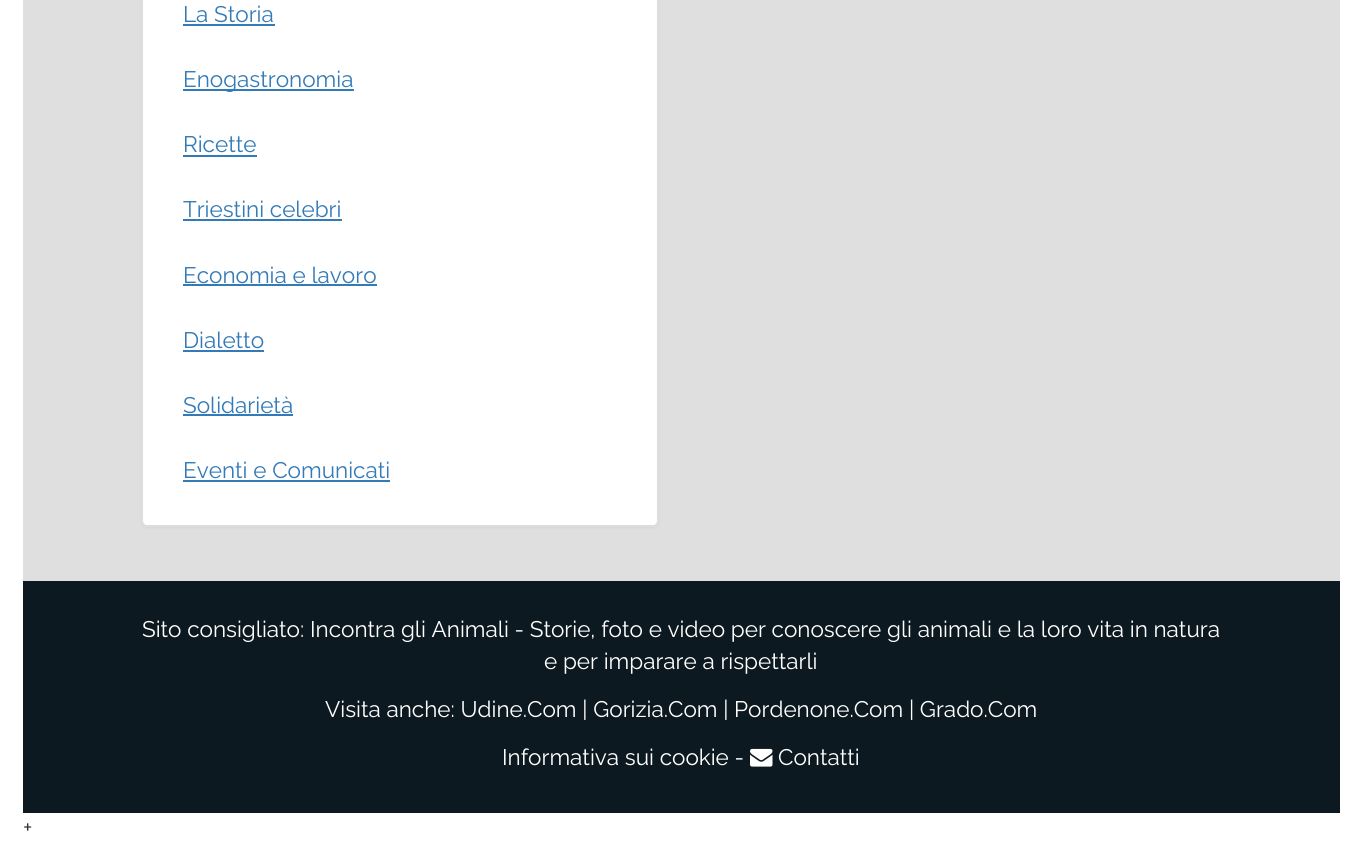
import math
import cairocffi as cairo

surface = cairo.ImageSurface(cairo.FORMAT_RGB24, 1362, 866)
cr = cairo.Context(surface)
options = cairo.FontOptions()
options.set_hint_metrics(cairo.HINT_METRICS_OFF)
options.set_hint_style(cairo.HINT_STYLE_NONE)
cr.set_font_options(options)
cr.set_miter_limit(4)


def use_color(code):
    cr.set_source_rgb(*(v / 255 for v in bytes.fromhex(code[-6:])))


def round_rect(x, y, w, h, r):
    cr.new_sub_path()
    for i, (u, v) in enumerate([(x + w - r, y + h - r), (x + r, y + h - r), (x + r, y + r), (x + w - r, y + r)]):
        cr.arc(u, v, r, i * math.pi / 2, (i + 1) * math.pi / 2)
    cr.close_path()


def shadow(x, y, w, h, r, blur, alpha):
    cr.push_group_with_content(cairo.CONTENT_ALPHA)
    cr.set_operator(cairo.OPERATOR_SOURCE)
    for i in range(15, -16, -2):
        e = blur * i / 6
        if min(w, h) + 2 * e > 0:
            cr.set_source_rgba(0, 0, 0, alpha * math.erfc((i - 1) / 8.5) / 2)
            round_rect(x - e, y - e, w + 2 * e, h + 2 * e, max(0, min(r + e + blur * .6, min(w, h) / 2 + e)))
            cr.fill()
    cr.mask(cr.pop_group())


def picture(path, x, y, w, h):
    cr.save()
    cr.set_source_surface(cairo.ImageSurface.create_from_png(path), x, y)
    cr.rectangle(x, y, w, h)
    cr.fill()
    cr.restore()


use_color("#ffffff")
cr.paint()
use_color("#dfdfdf")
cr.rectangle(23, 0, 1317, 581)
cr.fill()
use_color("#000000")
shadow(141, -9, 518, 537, 6, 1, 0.05)
use_color("#ffffff")
round_rect(142, -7, 516, 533, 5)
cr.fill_preserve()
use_color("#dddddd")
cr.stroke()
cr.select_font_face("Raleway")
cr.set_font_size(22.5)
use_color("#337ab7")
cr.move_to(183, 22)
cr.show_text("La Storia")
cr.rectangle(183, 24, 92, 2)
cr.fill()
cr.rectangle(183, 89, 171, 2)
cr.fill()
cr.move_to(183, 87)
cr.show_text("Enogastronomia")
cr.move_to(183, 152)
cr.show_text("Ricette")
cr.rectangle(183, 155, 74, 2)
cr.fill()
cr.move_to(183, 217)
cr.show_text("Triestini celebri")
cr.rectangle(183, 219, 159, 2)
cr.fill()
cr.move_to(183, 283)
cr.show_text("Economia e lavoro")
cr.rectangle(183, 284, 194, 2)
cr.fill()
cr.move_to(183, 348)
cr.show_text("Dialetto")
cr.rectangle(183, 350, 81, 2)
cr.fill()
cr.move_to(183, 413)
cr.show_text("Solidarietà")
cr.rectangle(183, 414, 110, 2)
cr.fill()
cr.move_to(183, 478)
cr.show_text("Eventi e Comunicati")
cr.rectangle(183, 480, 207, 2)
cr.fill()
use_color("#0d1920")
cr.rectangle(23, 581, 1317, 232)
cr.fill()
use_color("#ffffff")
cr.move_to(142, 637)
cr.show_text("Sito consigliato: Incontra gli Animali - Storie, foto e video per conoscere gli animali e la loro vita in natura")
cr.move_to(544, 669)
cr.show_text("e per imparare a rispettarli")
cr.move_to(325, 717)
cr.show_text("Visita anche: Udine.Com | Gorizia.Com | Pordenone.Com | Grado.Com")
cr.move_to(502, 765)
cr.show_text("Informativa sui cookie -")
picture("img1.png", 750, 748, 23, 19)
cr.move_to(778, 765)
cr.show_text("Contatti")
use_color("#333333")
cr.move_to(23, 835)
cr.show_text("+")
surface.write_to_png("result.png")
